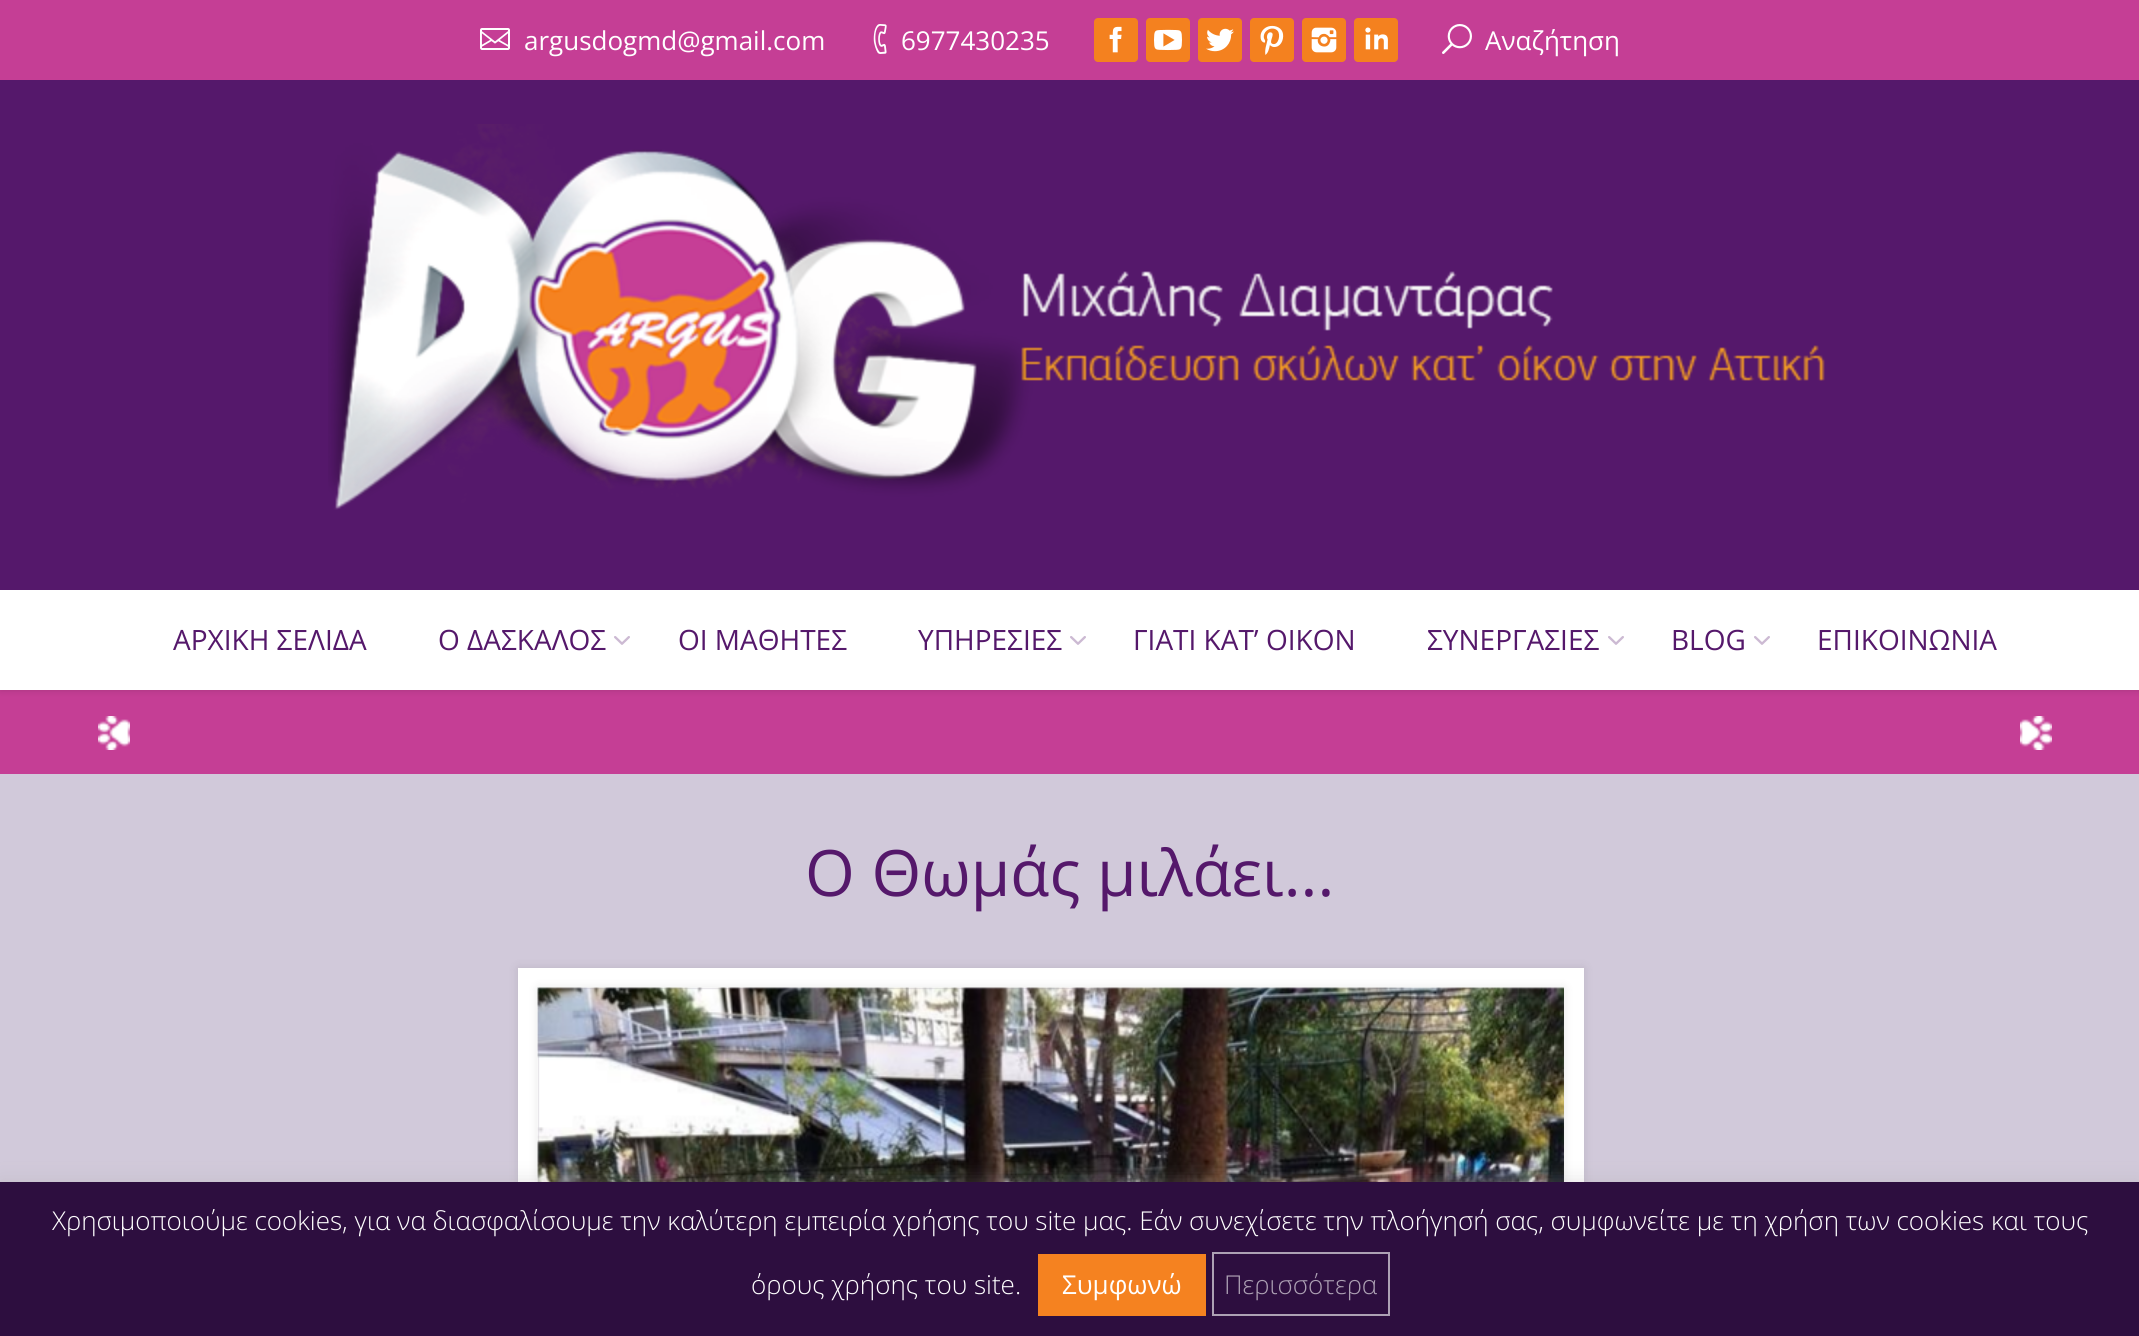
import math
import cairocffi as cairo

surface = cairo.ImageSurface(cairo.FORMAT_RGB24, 2139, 1336)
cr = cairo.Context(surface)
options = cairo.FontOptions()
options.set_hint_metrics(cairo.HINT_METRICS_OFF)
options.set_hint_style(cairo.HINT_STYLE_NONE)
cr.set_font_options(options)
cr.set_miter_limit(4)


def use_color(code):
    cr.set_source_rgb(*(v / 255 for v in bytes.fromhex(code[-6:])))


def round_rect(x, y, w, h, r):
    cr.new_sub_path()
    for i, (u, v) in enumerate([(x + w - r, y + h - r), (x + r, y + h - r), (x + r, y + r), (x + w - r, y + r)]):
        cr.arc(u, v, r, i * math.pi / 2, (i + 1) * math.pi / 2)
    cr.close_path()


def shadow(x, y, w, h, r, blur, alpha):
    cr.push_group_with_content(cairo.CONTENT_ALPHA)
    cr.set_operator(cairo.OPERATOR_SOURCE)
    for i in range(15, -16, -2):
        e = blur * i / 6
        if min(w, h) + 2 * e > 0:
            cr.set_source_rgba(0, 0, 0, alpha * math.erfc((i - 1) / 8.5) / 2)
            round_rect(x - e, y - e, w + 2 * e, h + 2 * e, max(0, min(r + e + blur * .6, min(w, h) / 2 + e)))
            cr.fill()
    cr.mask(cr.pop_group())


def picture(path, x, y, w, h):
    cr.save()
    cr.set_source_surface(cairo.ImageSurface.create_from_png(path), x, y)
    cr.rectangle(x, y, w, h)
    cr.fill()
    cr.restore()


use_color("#d1c9da")
cr.paint()
use_color("#c53e95")
cr.rectangle(0, 690, 2139, 84)
cr.fill()
use_color("#000000")
shadow(0, 0, 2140, 690, 0, 4, 0.15)
use_color("#55186b")
cr.rectangle(0, 80, 2139, 510)
cr.fill()
use_color("#c53e95")
cr.rectangle(0, 0, 2139, 80)
cr.fill()
picture("img1.png", 480, 28, 30, 22)
cr.select_font_face("Open Sans")
cr.set_font_size(26)
use_color("#ffffff")
cr.move_to(524, 50)
cr.show_text("argusdogmd@gmail.com")
picture("img2.png", 873, 24, 14, 30)
cr.move_to(901, 50)
cr.show_text("6977430235")
use_color("#f4811f")
round_rect(1094, 18, 44, 44, 4)
cr.fill()
picture("img3.png", 1109, 26, 13, 27)
round_rect(1146, 18, 44, 44, 4)
cr.fill()
picture("img4.png", 1154, 29, 28, 22)
round_rect(1198, 18, 44, 44, 4)
cr.fill()
picture("img5.png", 1206, 28, 28, 24)
round_rect(1250, 18, 44, 44, 4)
cr.fill()
picture("img6.png", 1260, 25, 24, 30)
round_rect(1302, 18, 44, 44, 4)
cr.fill()
picture("img7.png", 1311, 27, 26, 26)
round_rect(1354, 18, 44, 44, 4)
cr.fill()
picture("img8.png", 1365, 27, 23, 23)
picture("img9.png", 1442, 24, 30, 30)
use_color("#ffffff")
cr.move_to(1485, 50)
cr.show_text("Αναζήτηση")
picture("img10.png", 328, 124, 1497, 386)
cr.rectangle(0, 590, 2139, 100)
cr.fill()
cr.set_font_size(28)
use_color("#55186b")
cr.move_to(173, 650)
cr.show_text("ΑΡΧΙΚΗ ΣΕΛΙΔΑ")
cr.move_to(438, 650)
cr.show_text("Ο ΔΑΣΚΑΛΟΣ")
picture("img11.png", 614, 636, 16, 9)
cr.move_to(678, 650)
cr.show_text("ΟΙ ΜΑΘΗΤΕΣ")
cr.move_to(918, 650)
cr.show_text("ΥΠΗΡΕΣΙΕΣ")
picture("img11.png", 1070, 636, 16, 9)
cr.move_to(1133, 650)
cr.show_text("ΓΙΑΤΙ ΚΑΤ’ ΟΙΚΟΝ")
cr.move_to(1427, 650)
cr.show_text("ΣΥΝΕΡΓΑΣΙΕΣ")
picture("img11.png", 1608, 636, 16, 9)
cr.move_to(1671, 650)
cr.show_text("BLOG")
picture("img11.png", 1754, 636, 16, 9)
cr.move_to(1817, 650)
cr.show_text("ΕΠΙΚΟΙΝΩΝΙΑ")
picture("img12.png", 98, 716, 32, 34)
picture("img13.png", 2020, 716, 32, 34)
cr.set_font_size(64)
cr.move_to(805, 896)
cr.show_text("Ο Θωμάς μιλάει...")
use_color("#000000")
shadow(518, 968, 1066, 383, 0, 5, 0.1)
cr.rectangle(528, 978, 1046, 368)
use_color("#ffffff")
cr.set_line_width(20)
cr.stroke()
use_color("#000000")
shadow(538, 988, 1026, 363, 0, 5, 0.1)
picture("img14.png", 537, 987, 1027, 195)
use_color("#acabab")
shadow(0, 1180, 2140, 154, 0, 10, 0.3)
use_color("#2d0e3f")
cr.rectangle(0, 1182, 2139, 154)
cr.fill()
cr.select_font_face("Open Sans Light")
cr.set_font_size(26)
use_color("#ffffff")
cr.move_to(52, 1230)
cr.show_text("Χρησιμοποιούμε cookies, για να διασφαλίσουμε την καλύτερη εμπειρία χρήσης του site μας. Εάν συνεχίσετε την πλοήγησή σας, συμφωνείτε με τη χρήση των cookies και τους")
cr.move_to(751, 1294)
cr.show_text("όρους χρήσης του site.")
use_color("#f58220")
cr.rectangle(1038, 1254, 168, 62)
cr.fill()
cr.select_font_face("Open Sans")
use_color("#ffffff")
cr.move_to(1062, 1294)
cr.show_text("Συμφωνώ")
cr.rectangle(1213, 1253, 176, 62)
use_color("#ada1b4")
cr.set_line_width(2)
cr.stroke()
cr.select_font_face("Open Sans Light")
cr.move_to(1224, 1294)
cr.show_text("Περισσότερα")
surface.write_to_png("result.png")
